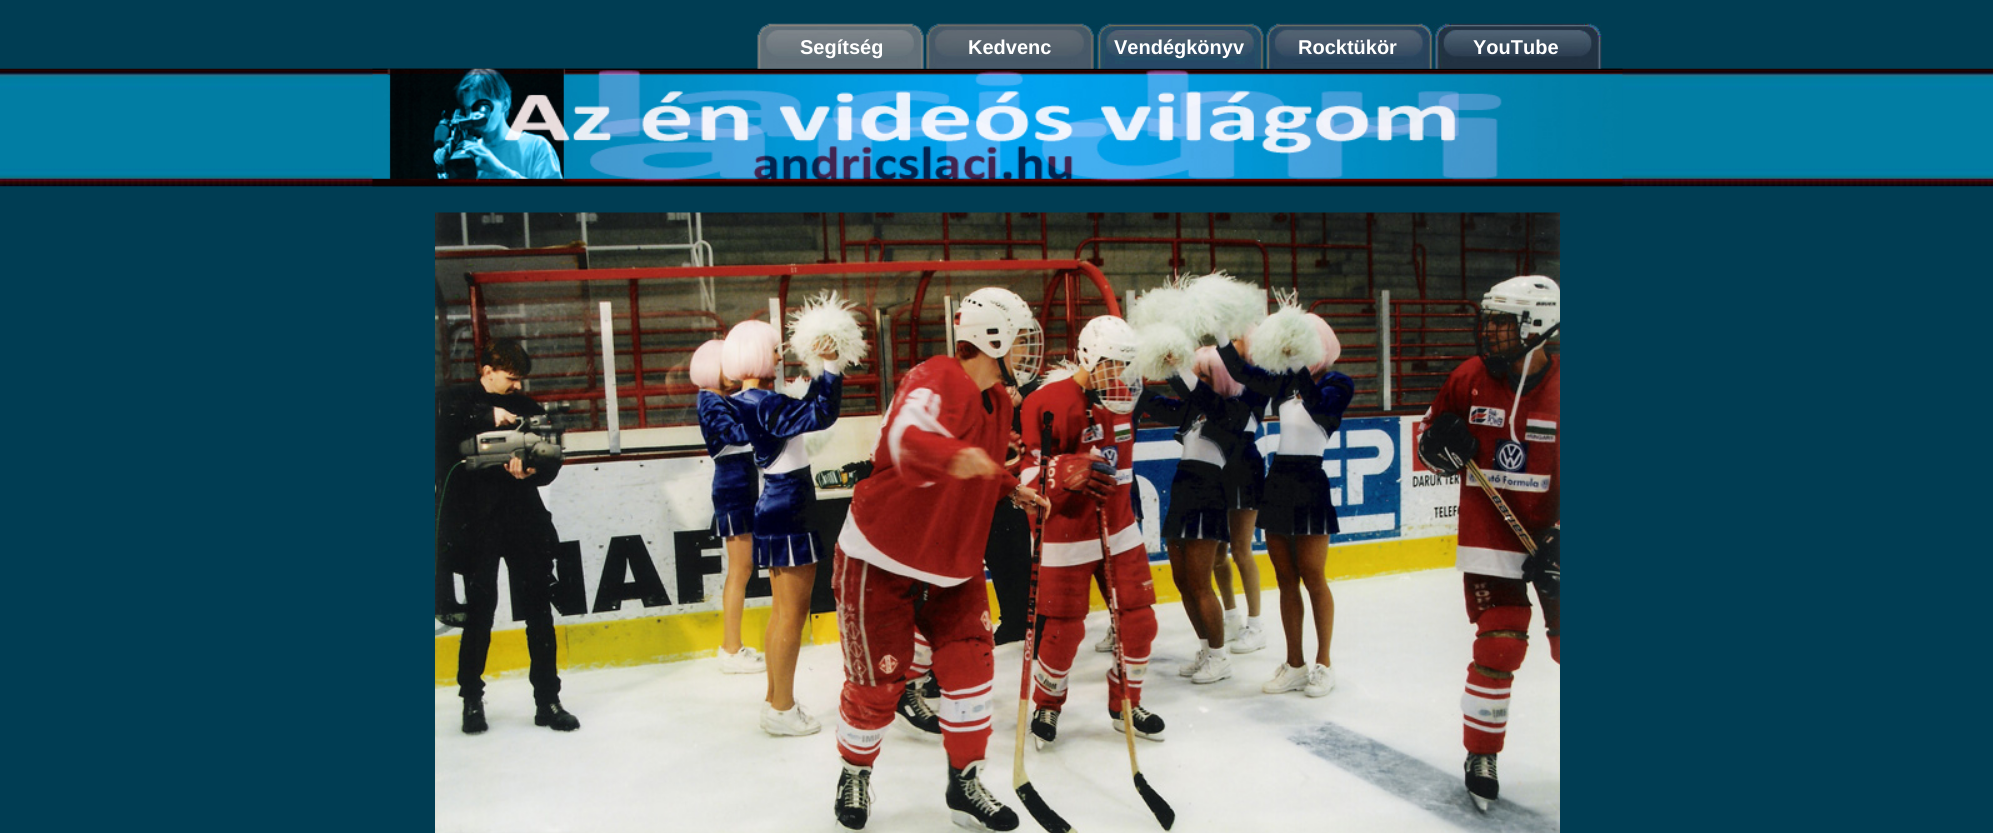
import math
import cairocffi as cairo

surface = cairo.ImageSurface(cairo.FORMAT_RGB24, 1993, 833)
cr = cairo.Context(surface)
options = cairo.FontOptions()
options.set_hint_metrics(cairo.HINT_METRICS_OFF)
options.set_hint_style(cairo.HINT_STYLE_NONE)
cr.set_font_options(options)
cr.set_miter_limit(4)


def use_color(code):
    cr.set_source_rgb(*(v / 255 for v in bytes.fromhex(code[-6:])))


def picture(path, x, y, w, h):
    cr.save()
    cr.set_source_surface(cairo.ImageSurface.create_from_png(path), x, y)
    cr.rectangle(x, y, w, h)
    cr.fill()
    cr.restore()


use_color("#003d53")
cr.paint()
picture("img1.png", 0, 68, 1993, 119)
picture("img2.png", 372, 68, 1251, 119)
picture("img3.png", 757, 23, 170, 46)
cr.select_font_face("Liberation Sans", cairo.FONT_SLANT_NORMAL, cairo.FONT_WEIGHT_BOLD)
cr.set_font_size(20)
use_color("#ffffff")
cr.move_to(800, 54)
cr.show_text("Segítség")
picture("img4.png", 926, 23, 168, 46)
cr.move_to(968, 54)
cr.show_text("Kedvenc")
picture("img5.png", 1095, 23, 169, 46)
cr.move_to(1114, 54)
cr.show_text("Vendégkönyv")
picture("img6.png", 1263, 23, 170, 46)
cr.move_to(1298, 54)
cr.show_text("Rocktükör")
picture("img7.png", 1432, 23, 170, 46)
cr.move_to(1473, 54)
cr.show_text("YouTube")
picture("img8.png", 435, 212, 1125, 621)
surface.write_to_png("result.png")
